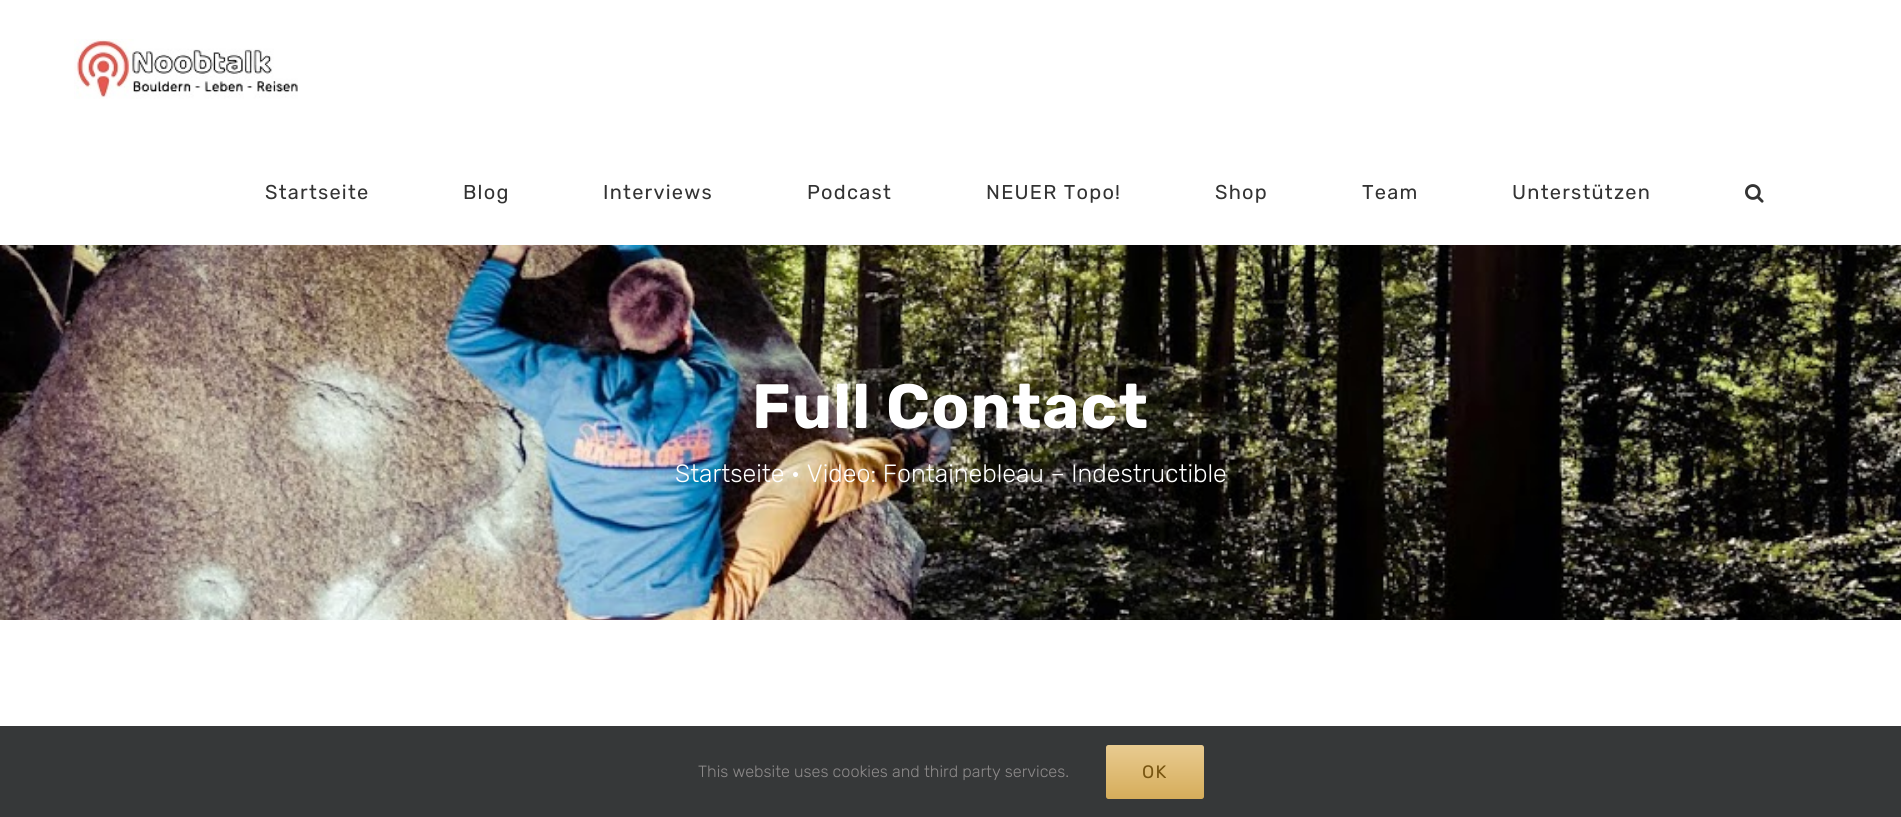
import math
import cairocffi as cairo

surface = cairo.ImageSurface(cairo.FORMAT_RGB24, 1901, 817)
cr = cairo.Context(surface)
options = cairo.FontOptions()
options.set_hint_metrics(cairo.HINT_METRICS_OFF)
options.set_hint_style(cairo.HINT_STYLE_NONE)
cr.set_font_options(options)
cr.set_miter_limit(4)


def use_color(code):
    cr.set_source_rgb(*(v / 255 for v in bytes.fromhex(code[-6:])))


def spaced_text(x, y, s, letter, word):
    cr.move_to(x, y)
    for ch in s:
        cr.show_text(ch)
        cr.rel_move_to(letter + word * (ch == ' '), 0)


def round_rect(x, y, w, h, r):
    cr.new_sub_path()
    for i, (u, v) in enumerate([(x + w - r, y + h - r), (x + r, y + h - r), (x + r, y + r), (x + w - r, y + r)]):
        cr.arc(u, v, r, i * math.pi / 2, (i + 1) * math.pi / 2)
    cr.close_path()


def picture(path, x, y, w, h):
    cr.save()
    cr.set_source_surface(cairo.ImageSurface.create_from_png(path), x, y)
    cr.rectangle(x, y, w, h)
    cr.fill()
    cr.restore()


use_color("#ffffff")
cr.paint()
picture("img1.png", 74, 39, 224, 60)
cr.select_font_face("Rubik")
cr.set_font_size(20)
use_color("#333333")
spaced_text(265, 199, "Startseite", 1.25, 0)
spaced_text(463, 199, "Blog", 1.25, 0)
spaced_text(603, 199, "Interviews", 1.25, 0)
spaced_text(807, 199, "Podcast", 1.25, 0)
spaced_text(986, 199, "NEUER Topo!", 1.25, 0)
spaced_text(1215, 199, "Shop", 1.25, 0)
spaced_text(1362, 199, "Team", 1.25, 0)
spaced_text(1512, 199, "Unterstützen", 1.25, 0)
picture("img2.png", 1745, 184, 19, 19)
picture("img3.png", 0, 245, 1901, 375)
cr.select_font_face("Rubik", cairo.FONT_SLANT_NORMAL, cairo.FONT_WEIGHT_BOLD)
cr.set_font_size(62.5)
use_color("#ffffff")
spaced_text(752, 428, "Full Contact", 1.25, 0)
cr.select_font_face("Rubik Light")
cr.set_font_size(25)
cr.move_to(675, 482)
cr.show_text("Startseite • Video: Fontainebleau – Indestructible")
use_color("#363839")
cr.rectangle(0, 726, 1901, 91)
cr.fill()
cr.set_font_size(16.25)
use_color("#8c8989")
cr.move_to(698, 777)
cr.show_text("This website uses cookies and third party services.")
gradient = cairo.LinearGradient(1155, 745, 1155, 799)
gradient.add_color_stop_rgba(0, 0.91, 0.796, 0.565, 1)
gradient.add_color_stop_rgba(1, 0.839, 0.678, 0.353, 1)
cr.set_source(gradient)
round_rect(1106, 745, 98, 54, 2.5)
cr.fill()
cr.select_font_face("Rubik")
cr.set_font_size(18)
use_color("#785510")
spaced_text(1142, 778, "OK", 1.25, 0)
surface.write_to_png("result.png")
